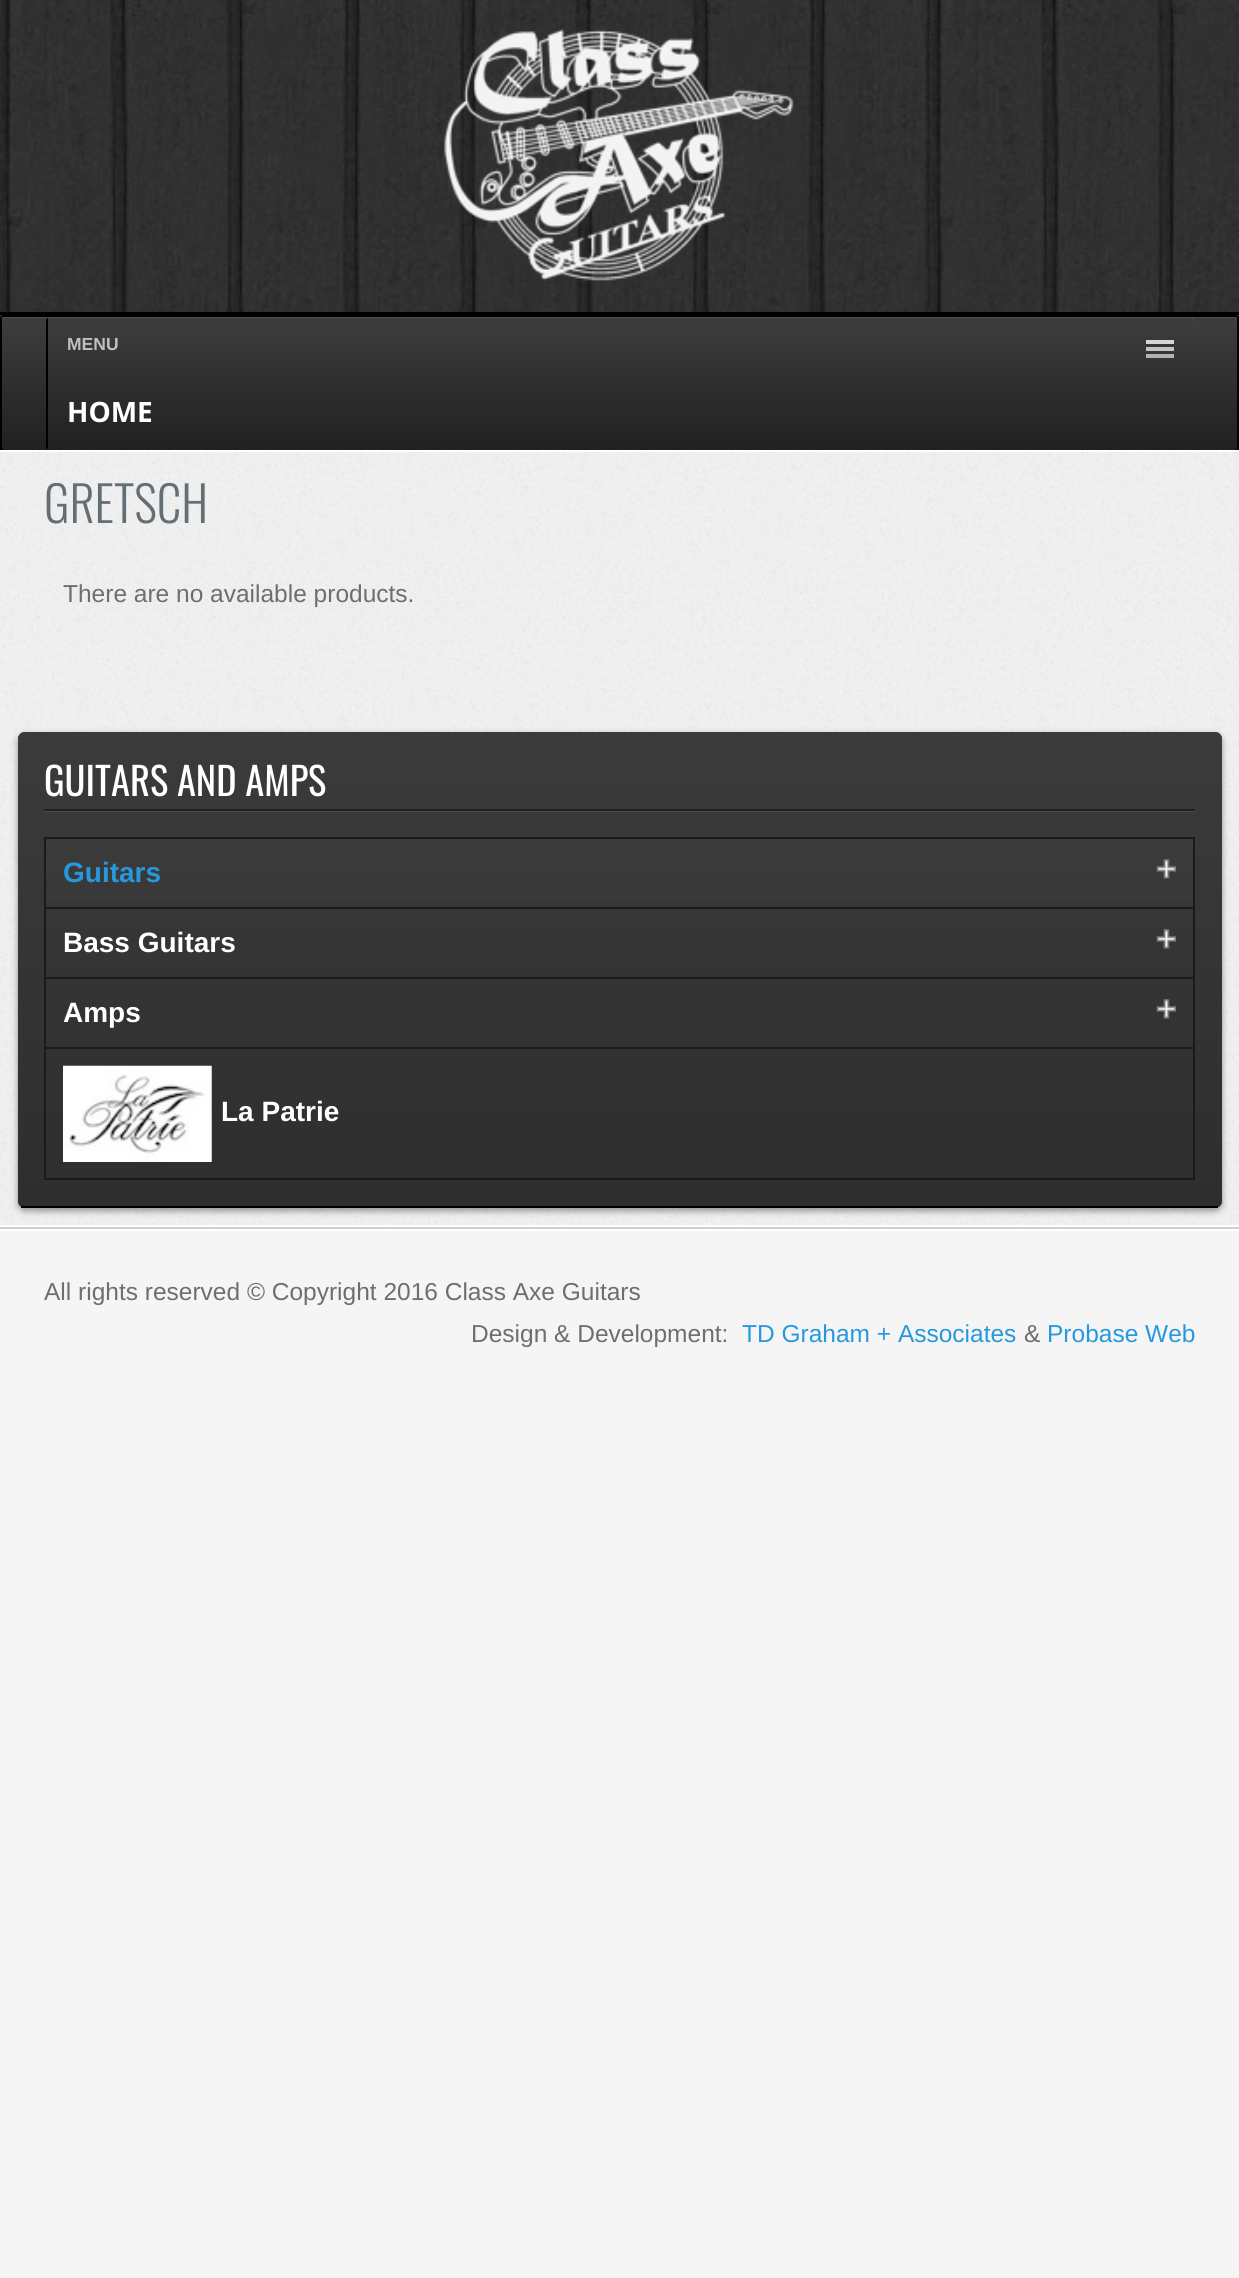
import math
import cairocffi as cairo

surface = cairo.ImageSurface(cairo.FORMAT_RGB24, 1239, 2278)
cr = cairo.Context(surface)
options = cairo.FontOptions()
options.set_hint_metrics(cairo.HINT_METRICS_OFF)
options.set_hint_style(cairo.HINT_STYLE_NONE)
cr.set_font_options(options)
cr.set_miter_limit(4)


def use_color(code):
    cr.set_source_rgb(*(v / 255 for v in bytes.fromhex(code[-6:])))


def round_rect(x, y, w, h, r):
    cr.new_sub_path()
    for i, (u, v) in enumerate([(x + w - r, y + h - r), (x + r, y + h - r), (x + r, y + r), (x + w - r, y + r)]):
        cr.arc(u, v, r, i * math.pi / 2, (i + 1) * math.pi / 2)
    cr.close_path()


def shadow(x, y, w, h, r, blur, alpha):
    cr.push_group_with_content(cairo.CONTENT_ALPHA)
    cr.set_operator(cairo.OPERATOR_SOURCE)
    for i in range(15, -16, -2):
        e = blur * i / 6
        if min(w, h) + 2 * e > 0:
            cr.set_source_rgba(0, 0, 0, alpha * math.erfc((i - 1) / 8.5) / 2)
            round_rect(x - e, y - e, w + 2 * e, h + 2 * e, max(0, min(r + e + blur * .6, min(w, h) / 2 + e)))
            cr.fill()
    cr.mask(cr.pop_group())


def picture(path, x, y, w, h):
    cr.save()
    cr.set_source_surface(cairo.ImageSurface.create_from_png(path), x, y)
    cr.rectangle(x, y, w, h)
    cr.fill()
    cr.restore()


use_color("#f5f5f5")
cr.paint()
picture("img1.png", 0, 0, 1239, 312)
picture("img2.png", 0, 0, 1239, 311)
picture("img3.png", 444, 29, 350, 252)
use_color("#000000")
cr.rectangle(0, 312, 1239, 3)
cr.fill()
gradient = cairo.LinearGradient(620, 315, 620, 450)
gradient.add_color_stop_rgba(0, 0.129, 0.129, 0.129, 1)
gradient.add_color_stop_rgba(1, 0.298, 0.298, 0.298, 1)
cr.set_source(gradient)
cr.rectangle(0, 315, 1239, 133)
cr.fill()
use_color("#000000")
cr.rectangle(0, 448, 1239, 2)
cr.fill()
use_color("#ffffff")
cr.rectangle(0, 450, 1239, 2)
cr.fill()
gradient = cairo.LinearGradient(620, 317, 620, 450)
gradient.add_color_stop_rgba(0, 0.239, 0.239, 0.239, 1)
gradient.add_color_stop_rgba(1, 0.129, 0.129, 0.129, 1)
cr.set_source(gradient)
cr.new_path()
cr.move_to(4, 317)
cr.line_to(1236, 317)
cr.curve_to(1236, 317, 1237, 318, 1237, 318)
cr.line_to(1237, 446)
cr.curve_to(1237, 448, 1236, 450, 1236, 450)
cr.line_to(4, 450)
cr.curve_to(3, 450, 2, 448, 2, 446)
cr.line_to(2, 318)
cr.curve_to(2, 318, 3, 317, 4, 317)
cr.close_path()
cr.fill()
cr.set_source_rgba(1, 1, 1, 0.1)
cr.new_path()
cr.move_to(4, 318)
cr.line_to(1236, 318)
cr.line_to(1237, 320)
cr.line_to(1237, 448)
cr.line_to(1237, 318)
cr.curve_to(1237, 318, 1236, 317, 1236, 317)
cr.line_to(4, 317)
cr.curve_to(3, 317, 2, 318, 2, 318)
cr.line_to(2, 448)
cr.line_to(2, 320)
cr.curve_to(2, 319, 3, 318, 4, 318)
cr.close_path()
cr.fill()
use_color("#000000")
cr.rectangle(2, 315, 1235, 2)
cr.fill()
cr.rectangle(1237, 317, 2, 131)
cr.fill()
cr.rectangle(0, 317, 2, 131)
cr.fill()
gradient = cairo.LinearGradient(620, 317, 620, 450)
gradient.add_color_stop_rgba(0, 0.239, 0.239, 0.239, 1)
gradient.add_color_stop_rgba(1, 0.129, 0.129, 0.129, 1)
cr.set_source(gradient)
round_rect(46, 317, 1148, 133, 4)
cr.fill()
cr.set_source_rgba(1, 1, 1, 0.1)
cr.new_path()
cr.move_to(49, 318)
cr.line_to(1190, 318)
cr.curve_to(1192, 318, 1194, 320, 1194, 322)
cr.curve_to(1194, 319, 1193, 317, 1190, 317)
cr.line_to(50, 317)
cr.curve_to(47, 317, 46, 319, 46, 322)
cr.curve_to(46, 320, 47, 318, 49, 318)
cr.close_path()
cr.fill()
cr.save()
round_rect(46, 317, 1148, 133, 4)
cr.clip()
use_color("#000000")
cr.rectangle(46, 317, 2, 56)
cr.fill()
cr.restore()
cr.select_font_face("Liberation Sans", cairo.FONT_SLANT_NORMAL, cairo.FONT_WEIGHT_BOLD)
cr.set_font_size(17.5)
use_color("#bfbfbf")
cr.move_to(67, 350)
cr.show_text("MENU")
use_color("#b1b1b1")
cr.rectangle(1146, 354, 28, 4)
cr.fill()
use_color("#d5d5d5")
cr.rectangle(1146, 340, 28, 4)
cr.fill()
use_color("#c3c3c3")
cr.rectangle(1146, 347, 28, 4)
cr.fill()
cr.save()
round_rect(46, 317, 1148, 133, 4)
cr.clip()
use_color("#000000")
cr.rectangle(46, 373, 2, 77)
cr.fill()
cr.restore()
cr.select_font_face("Open Sans", cairo.FONT_SLANT_NORMAL, cairo.FONT_WEIGHT_BOLD)
cr.set_font_size(28)
use_color("#ffffff")
cr.move_to(67, 422)
cr.show_text("HOME")
use_color("#cecece")
cr.rectangle(0, 1227, 1239, 2)
cr.fill()
use_color("#f0f0f0")
cr.rectangle(0, 452, 1239, 773)
cr.fill()
picture("img4.png", 0, 452, 1239, 773)
use_color("#ffffff")
cr.rectangle(0, 1225, 1239, 2)
cr.fill()
cr.select_font_face("Oswald Light")
cr.set_font_size(49)
use_color("#636e75")
cr.move_to(44, 523)
cr.show_text("GRETSCH")
cr.rectangle(45, 556, 1149, 78)
use_color("#eeeeee")
cr.stroke()
cr.select_font_face("Liberation Sans")
cr.set_font_size(24.5)
use_color("#6e6e6e")
cr.move_to(63, 602)
cr.show_text("There are no available products.")
use_color("#000000")
shadow(18, 735, 1204, 476, 7, 3.5, 0.4)
use_color("#363636")
round_rect(18, 732, 1204, 476, 7)
cr.fill()
cr.save()
round_rect(18, 732, 1204, 476, 7)
cr.clip()
gradient = cairo.LinearGradient(620, 732, 620, 1206)
gradient.add_color_stop_rgba(0, 0.231, 0.231, 0.231, 1)
gradient.add_color_stop_rgba(1, 0.18, 0.18, 0.18, 1)
cr.set_source(gradient)
cr.new_path()
cr.move_to(25, 732)
cr.line_to(1215, 732)
cr.curve_to(1219, 732, 1222, 735, 1222, 739)
cr.line_to(1222, 1206)
cr.line_to(18, 1206)
cr.line_to(18, 739)
cr.curve_to(18, 735, 21, 732, 25, 732)
cr.close_path()
cr.fill()
cr.restore()
use_color("#000000")
cr.rectangle(21, 1206, 1197, 2)
cr.fill()
use_color("#4c4c4c")
cr.rectangle(44, 811, 1151, 1)
cr.fill()
use_color("#212121")
cr.rectangle(44, 809, 1151, 2)
cr.fill()
cr.select_font_face("Oswald")
cr.set_font_size(38.5)
use_color("#ffffff")
cr.move_to(44, 796)
cr.show_text("GUITARS AND AMPS")
gradient = cairo.LinearGradient(620, 838, 620, 1178)
gradient.add_color_stop_rgba(0, 0.231, 0.231, 0.231, 1)
gradient.add_color_stop_rgba(1, 0.18, 0.18, 0.18, 1)
cr.set_source(gradient)
cr.rectangle(46, 839, 1147, 64)
cr.fill()
cr.rectangle(45, 838, 1149, 341)
use_color("#1a1a1a")
cr.stroke()
cr.select_font_face("Liberation Sans", cairo.FONT_SLANT_NORMAL, cairo.FONT_WEIGHT_BOLD)
cr.set_font_size(28)
use_color("#2698de")
cr.move_to(63, 882)
cr.show_text("Guitars")
picture("img5.png", 1156, 859, 20, 20)
use_color("#1a1a1a")
cr.rectangle(46, 907, 1148, 2)
cr.fill()
use_color("#ffffff")
cr.move_to(63, 952)
cr.show_text("Bass Guitars")
picture("img6.png", 1156, 929, 20, 20)
use_color("#1a1a1a")
cr.rectangle(46, 977, 1148, 2)
cr.fill()
use_color("#ffffff")
cr.move_to(63, 1022)
cr.show_text("Amps")
picture("img7.png", 1156, 999, 20, 20)
use_color("#1a1a1a")
cr.rectangle(46, 1047, 1148, 2)
cr.fill()
picture("img8.png", 63, 1065, 149, 97)
use_color("#ffffff")
cr.move_to(221, 1121)
cr.show_text("La Patrie")
cr.rectangle(0, 1229, 1239, 2)
cr.fill()
cr.select_font_face("Liberation Sans")
cr.set_font_size(24.5)
use_color("#6e6e6e")
cr.move_to(44, 1300)
cr.show_text("All rights reserved © Copyright 2016 Class Axe Guitars")
cr.move_to(471, 1342)
cr.show_text("Design & Development:")
use_color("#2698de")
cr.move_to(742, 1342)
cr.show_text("TD Graham + Associates")
use_color("#6e6e6e")
cr.move_to(1024, 1342)
cr.show_text("&")
use_color("#2698de")
cr.move_to(1047, 1342)
cr.show_text("Probase Web")
surface.write_to_png("result.png")
